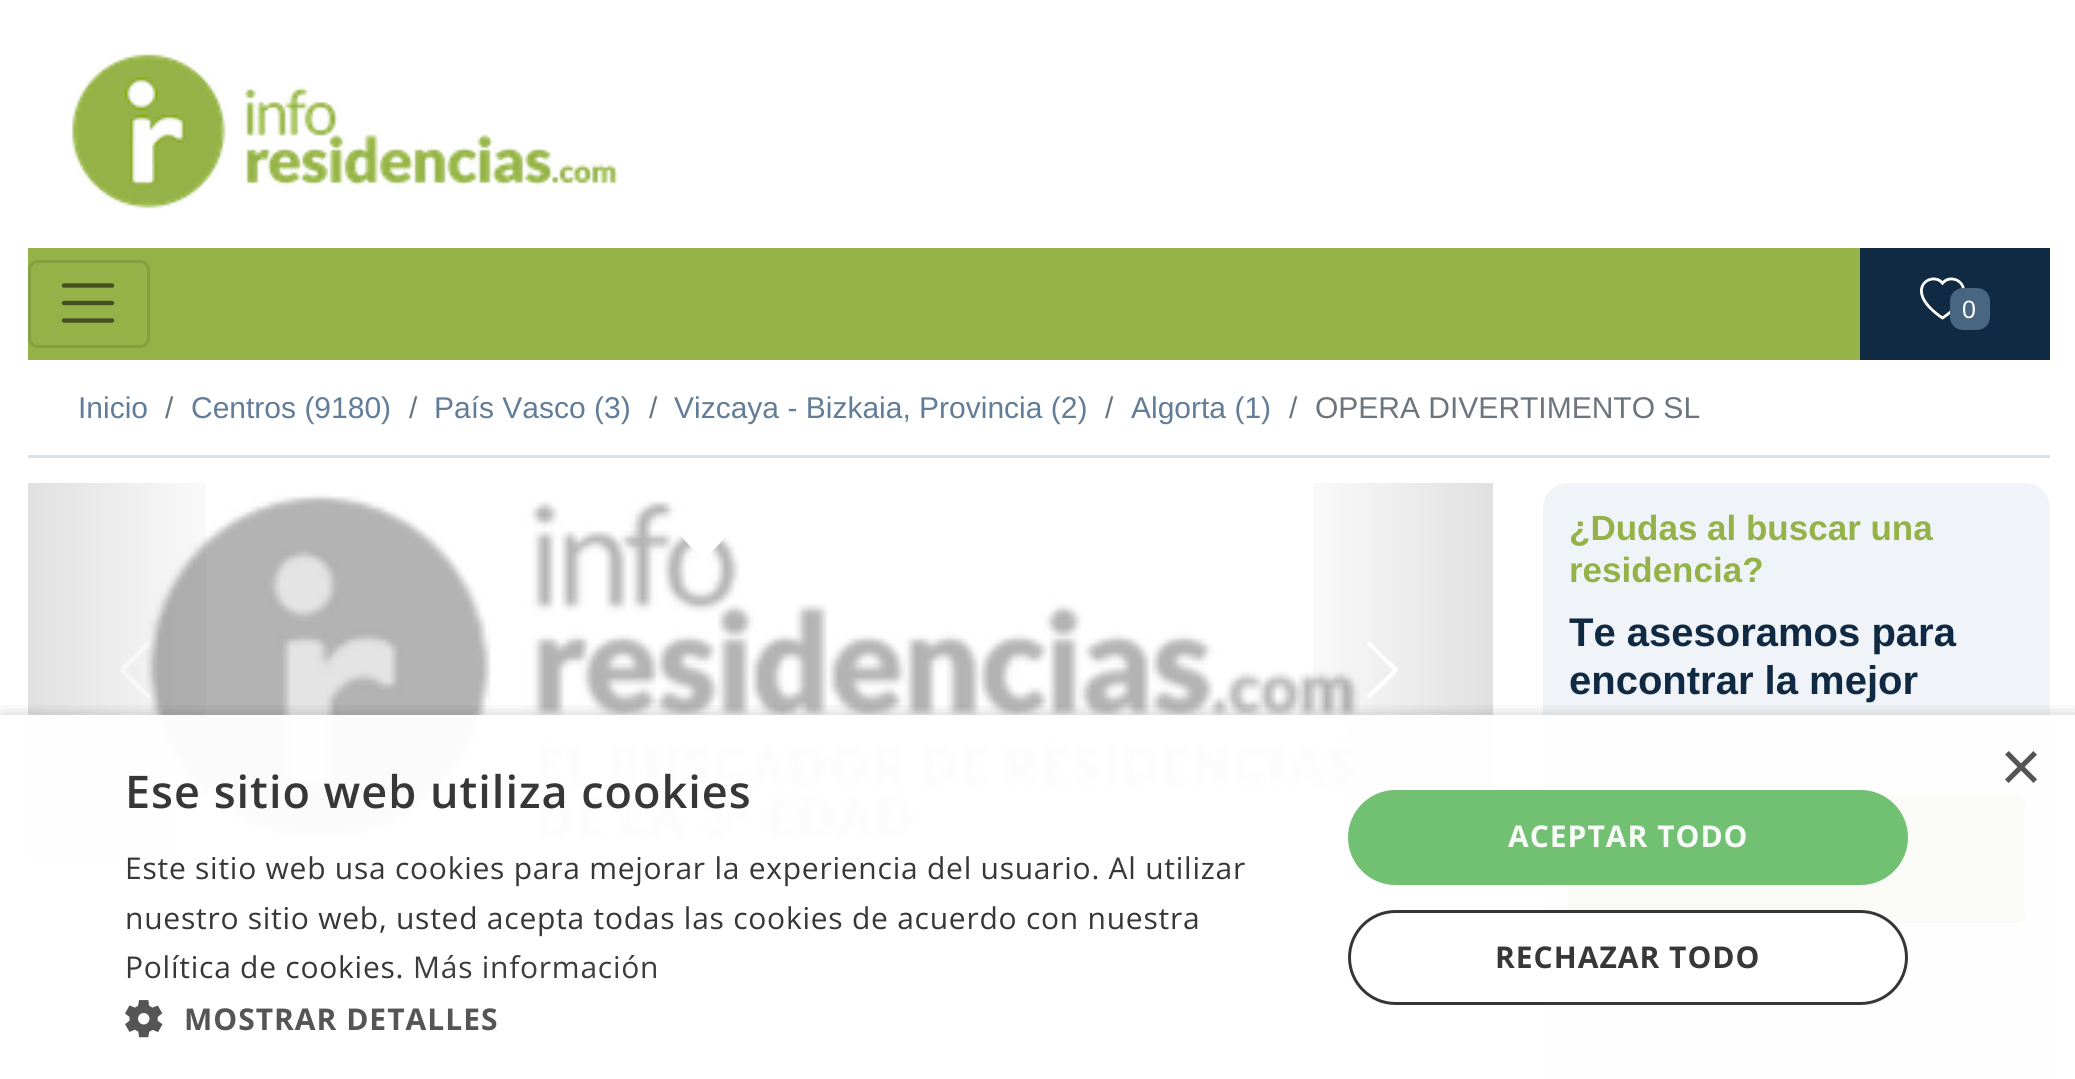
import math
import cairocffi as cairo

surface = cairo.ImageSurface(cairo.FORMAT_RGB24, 2075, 1079)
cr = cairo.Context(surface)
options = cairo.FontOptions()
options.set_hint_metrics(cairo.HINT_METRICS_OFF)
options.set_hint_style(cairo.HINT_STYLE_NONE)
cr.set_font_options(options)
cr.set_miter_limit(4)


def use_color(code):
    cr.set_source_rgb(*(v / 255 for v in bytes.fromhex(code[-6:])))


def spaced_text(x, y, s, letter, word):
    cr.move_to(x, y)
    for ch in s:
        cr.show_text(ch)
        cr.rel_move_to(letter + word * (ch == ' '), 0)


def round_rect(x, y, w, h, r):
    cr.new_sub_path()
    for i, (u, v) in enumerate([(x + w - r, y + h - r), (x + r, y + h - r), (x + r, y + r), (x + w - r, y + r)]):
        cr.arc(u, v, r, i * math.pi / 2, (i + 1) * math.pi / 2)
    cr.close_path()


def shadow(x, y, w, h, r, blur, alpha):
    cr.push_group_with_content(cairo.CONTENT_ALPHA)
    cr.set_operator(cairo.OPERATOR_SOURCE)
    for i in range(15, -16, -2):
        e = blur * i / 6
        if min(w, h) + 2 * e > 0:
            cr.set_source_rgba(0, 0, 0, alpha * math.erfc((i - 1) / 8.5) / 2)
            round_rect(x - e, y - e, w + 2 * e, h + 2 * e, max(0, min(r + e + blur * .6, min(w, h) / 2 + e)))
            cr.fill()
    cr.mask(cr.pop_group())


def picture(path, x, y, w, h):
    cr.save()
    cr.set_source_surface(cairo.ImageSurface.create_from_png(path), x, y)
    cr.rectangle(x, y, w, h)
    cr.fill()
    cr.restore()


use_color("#ffffff")
cr.paint()
picture("img1.png", 71, 54, 547, 155)
use_color("#94b247")
cr.rectangle(28, 248, 1832, 112)
cr.fill()
round_rect(29.5, 261.5, 119, 85, 8.5)
use_color("#85a040")
cr.set_line_width(3)
cr.stroke()
cr.new_path()
cr.move_to(64, 285.5)
cr.line_to(112, 285.5)
cr.move_to(64, 303)
cr.line_to(112, 303)
cr.move_to(64, 320.5)
cr.line_to(112, 320.5)
use_color("#435020")
cr.set_line_width(4.4)
cr.set_line_cap(cairo.LINE_CAP_ROUND)
cr.stroke()
use_color("#102a43")
cr.rectangle(1860, 248, 190, 112)
cr.fill()
picture("img2.png", 1920, 277, 45, 43)
use_color("#486581")
round_rect(1950, 288, 40, 42, 13)
cr.fill()
cr.select_font_face("Liberation Sans")
cr.set_font_size(25)
use_color("#ffffff")
cr.move_to(1962, 318)
cr.show_text("0")
use_color("#d9e2ec")
cr.rectangle(28, 455, 2022, 3)
cr.fill()
cr.set_font_size(30)
use_color("#627d98")
cr.move_to(78, 418)
cr.show_text("Inicio")
use_color("#6c757d")
cr.move_to(165, 418)
cr.show_text("/")
use_color("#627d98")
cr.move_to(191, 418)
cr.show_text("Centros (9180)")
use_color("#6c757d")
cr.move_to(409, 418)
cr.show_text("/")
use_color("#627d98")
cr.move_to(434, 418)
cr.show_text("País Vasco (3)")
use_color("#6c757d")
cr.move_to(649, 418)
cr.show_text("/")
use_color("#627d98")
cr.move_to(674, 418)
cr.show_text("Vizcaya - Bizkaia, Provincia (2)")
use_color("#6c757d")
cr.move_to(1105, 418)
cr.show_text("/")
use_color("#627d98")
cr.move_to(1131, 418)
cr.show_text("Algorta (1)")
use_color("#6c757d")
cr.move_to(1289, 418)
cr.show_text("/")
cr.move_to(1315, 418)
cr.show_text("OPERA DIVERTIMENTO SL")
picture("img3.png", 146, 493, 1214, 351)
gradient = cairo.LinearGradient(27, 670, 245, 670)
gradient.add_color_stop_rgba(0, 0, 0, 0, 0.12)
gradient.add_color_stop_rgba(1, 0, 0, 0, 0)
cr.set_source(gradient)
cr.rectangle(28, 483, 178, 375)
cr.fill()
cr.set_source_rgba(1, 1, 1, 0.5)
cr.new_path()
cr.move_to(150, 642)
cr.curve_to(152, 645, 146, 649, 146, 649)
cr.line_to(125, 670)
cr.line_to(150, 695)
cr.curve_to(151, 697, 149, 699, 148, 698)
cr.line_to(142, 693)
cr.curve_to(139, 691, 120, 672, 120, 670)
cr.curve_to(120, 667, 127, 661, 129, 660)
cr.line_to(142, 647)
cr.curve_to(143, 646, 147, 640, 150, 642)
cr.close_path()
cr.fill()
gradient = cairo.LinearGradient(1493, 670, 1273, 670)
gradient.add_color_stop_rgba(0, 0, 0, 0, 0.12)
gradient.add_color_stop_rgba(1, 0, 0, 0, 0)
cr.set_source(gradient)
cr.rectangle(1313, 483, 180, 375)
cr.fill()
use_color("#ffffff")
cr.new_path()
cr.move_to(1368, 642)
cr.curve_to(1370, 640, 1375, 646, 1375, 647)
cr.line_to(1388, 660)
cr.curve_to(1390, 661, 1398, 667, 1398, 670)
cr.curve_to(1398, 672, 1378, 691, 1375, 693)
cr.line_to(1370, 698)
cr.curve_to(1368, 699, 1367, 697, 1367, 695)
cr.line_to(1393, 670)
cr.line_to(1372, 649)
cr.curve_to(1371, 649, 1365, 645, 1368, 642)
cr.close_path()
cr.fill()
cr.rectangle(723, 790, 75, 8)
cr.fill()
cr.new_path()
cr.move_to(704, 512)
cr.curve_to(706, 509, 710, 508, 713, 508)
cr.curve_to(728, 507, 733, 522, 727, 533)
cr.curve_to(722, 543, 713, 551, 704, 557)
cr.curve_to(695, 551, 685, 543, 680, 533)
cr.curve_to(674, 522, 679, 507, 694, 508)
cr.curve_to(698, 508, 701, 509, 704, 512)
cr.close_path()
cr.fill()
use_color("#f0f4f8")
round_rect(1543, 483, 507, 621, 25)
cr.fill()
cr.select_font_face("Liberation Sans", cairo.FONT_SLANT_NORMAL, cairo.FONT_WEIGHT_BOLD)
cr.set_font_size(35)
use_color("#94b247")
cr.move_to(1569, 540)
cr.show_text("¿Dudas al buscar una")
cr.move_to(1569, 582)
cr.show_text("residencia?")
cr.set_font_size(40)
use_color("#102a43")
cr.move_to(1569, 646)
cr.show_text("Te asesoramos para")
cr.move_to(1569, 694)
cr.show_text("encontrar la mejor")
use_color("#000000")
shadow(1568, 798, 457, 127, 10, 1, 0.07)
use_color("#95b14d")
round_rect(1568, 795, 457, 128, 10)
cr.fill()
use_color("#a5bd68")
cr.new_path()
cr.move_to(1576, 800)
cr.line_to(2016, 800)
cr.curve_to(2020, 800, 2022, 803, 2022, 806)
cr.line_to(2022, 917)
cr.curve_to(2023, 916, 2023, 915, 2023, 914)
cr.line_to(2023, 804)
cr.curve_to(2023, 801, 2020, 798, 2017, 798)
cr.line_to(1576, 798)
cr.curve_to(1573, 798, 1570, 801, 1570, 804)
cr.line_to(1570, 806)
cr.curve_to(1570, 803, 1573, 800, 1576, 800)
cr.close_path()
cr.fill()
round_rect(1569.5, 796.5, 454, 125, 8.5)
use_color("#95b14d")
cr.set_line_width(3)
cr.set_line_cap(cairo.LINE_CAP_BUTT)
cr.stroke()
cr.save()
cr.rectangle(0, 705, 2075, 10)
cr.clip()
use_color("#000000")
shadow(3, 720, 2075, 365, 0, 10, 0.33)
cr.restore()
cr.set_source_rgba(1, 1, 1, 0.95)
cr.rectangle(28, 715, 2022, 364)
cr.fill()
cr.select_font_face("Liberation Sans")
cr.set_font_size(72)
use_color("#555555")
cr.move_to(2000, 791)
cr.show_text("×")
cr.select_font_face("Open Sans SemiBold")
cr.set_font_size(45)
use_color("#373737")
spaced_text(125, 808, "Ese sitio web utiliza cookies", 1, 0)
cr.select_font_face("Open Sans")
cr.set_font_size(30)
spaced_text(125, 879, "Este sitio web usa cookies para mejorar la experiencia del usuario. Al utilizar", 0.75, 0)
spaced_text(125, 929, "nuestro sitio web, usted acepta todas las cookies de acuerdo con nuestra", 0.75, 0)
spaced_text(125, 978, "Política de cookies.", 0.75, 0)
use_color("#3d3d3d")
spaced_text(413, 978, "Más información", 0.75, 0)
picture("img4.png", 125, 1000, 38, 38)
cr.select_font_face("Open Sans", cairo.FONT_SLANT_NORMAL, cairo.FONT_WEIGHT_BOLD)
use_color("#555555")
spaced_text(184, 1030, "MOSTRAR DETALLES", 1, 0)
cr.set_source_rgba(0.42, 0.745, 0.42, 0.95)
round_rect(1348, 790, 560, 95, 47.5)
cr.fill()
use_color("#f8fcf8")
spaced_text(1508, 847, "ACEPTAR TODO", 1, 0)
cr.set_source_rgba(1, 1, 1, 0.95)
round_rect(1348, 910, 560, 95, 47.5)
cr.fill()
round_rect(1349.5, 911.5, 557, 92, 46)
cr.set_source_rgba(0.176, 0.176, 0.176, 0.95)
cr.stroke()
use_color("#373737")
spaced_text(1495, 968, "RECHAZAR TODO", 1, 0)
surface.write_to_png("result.png")
